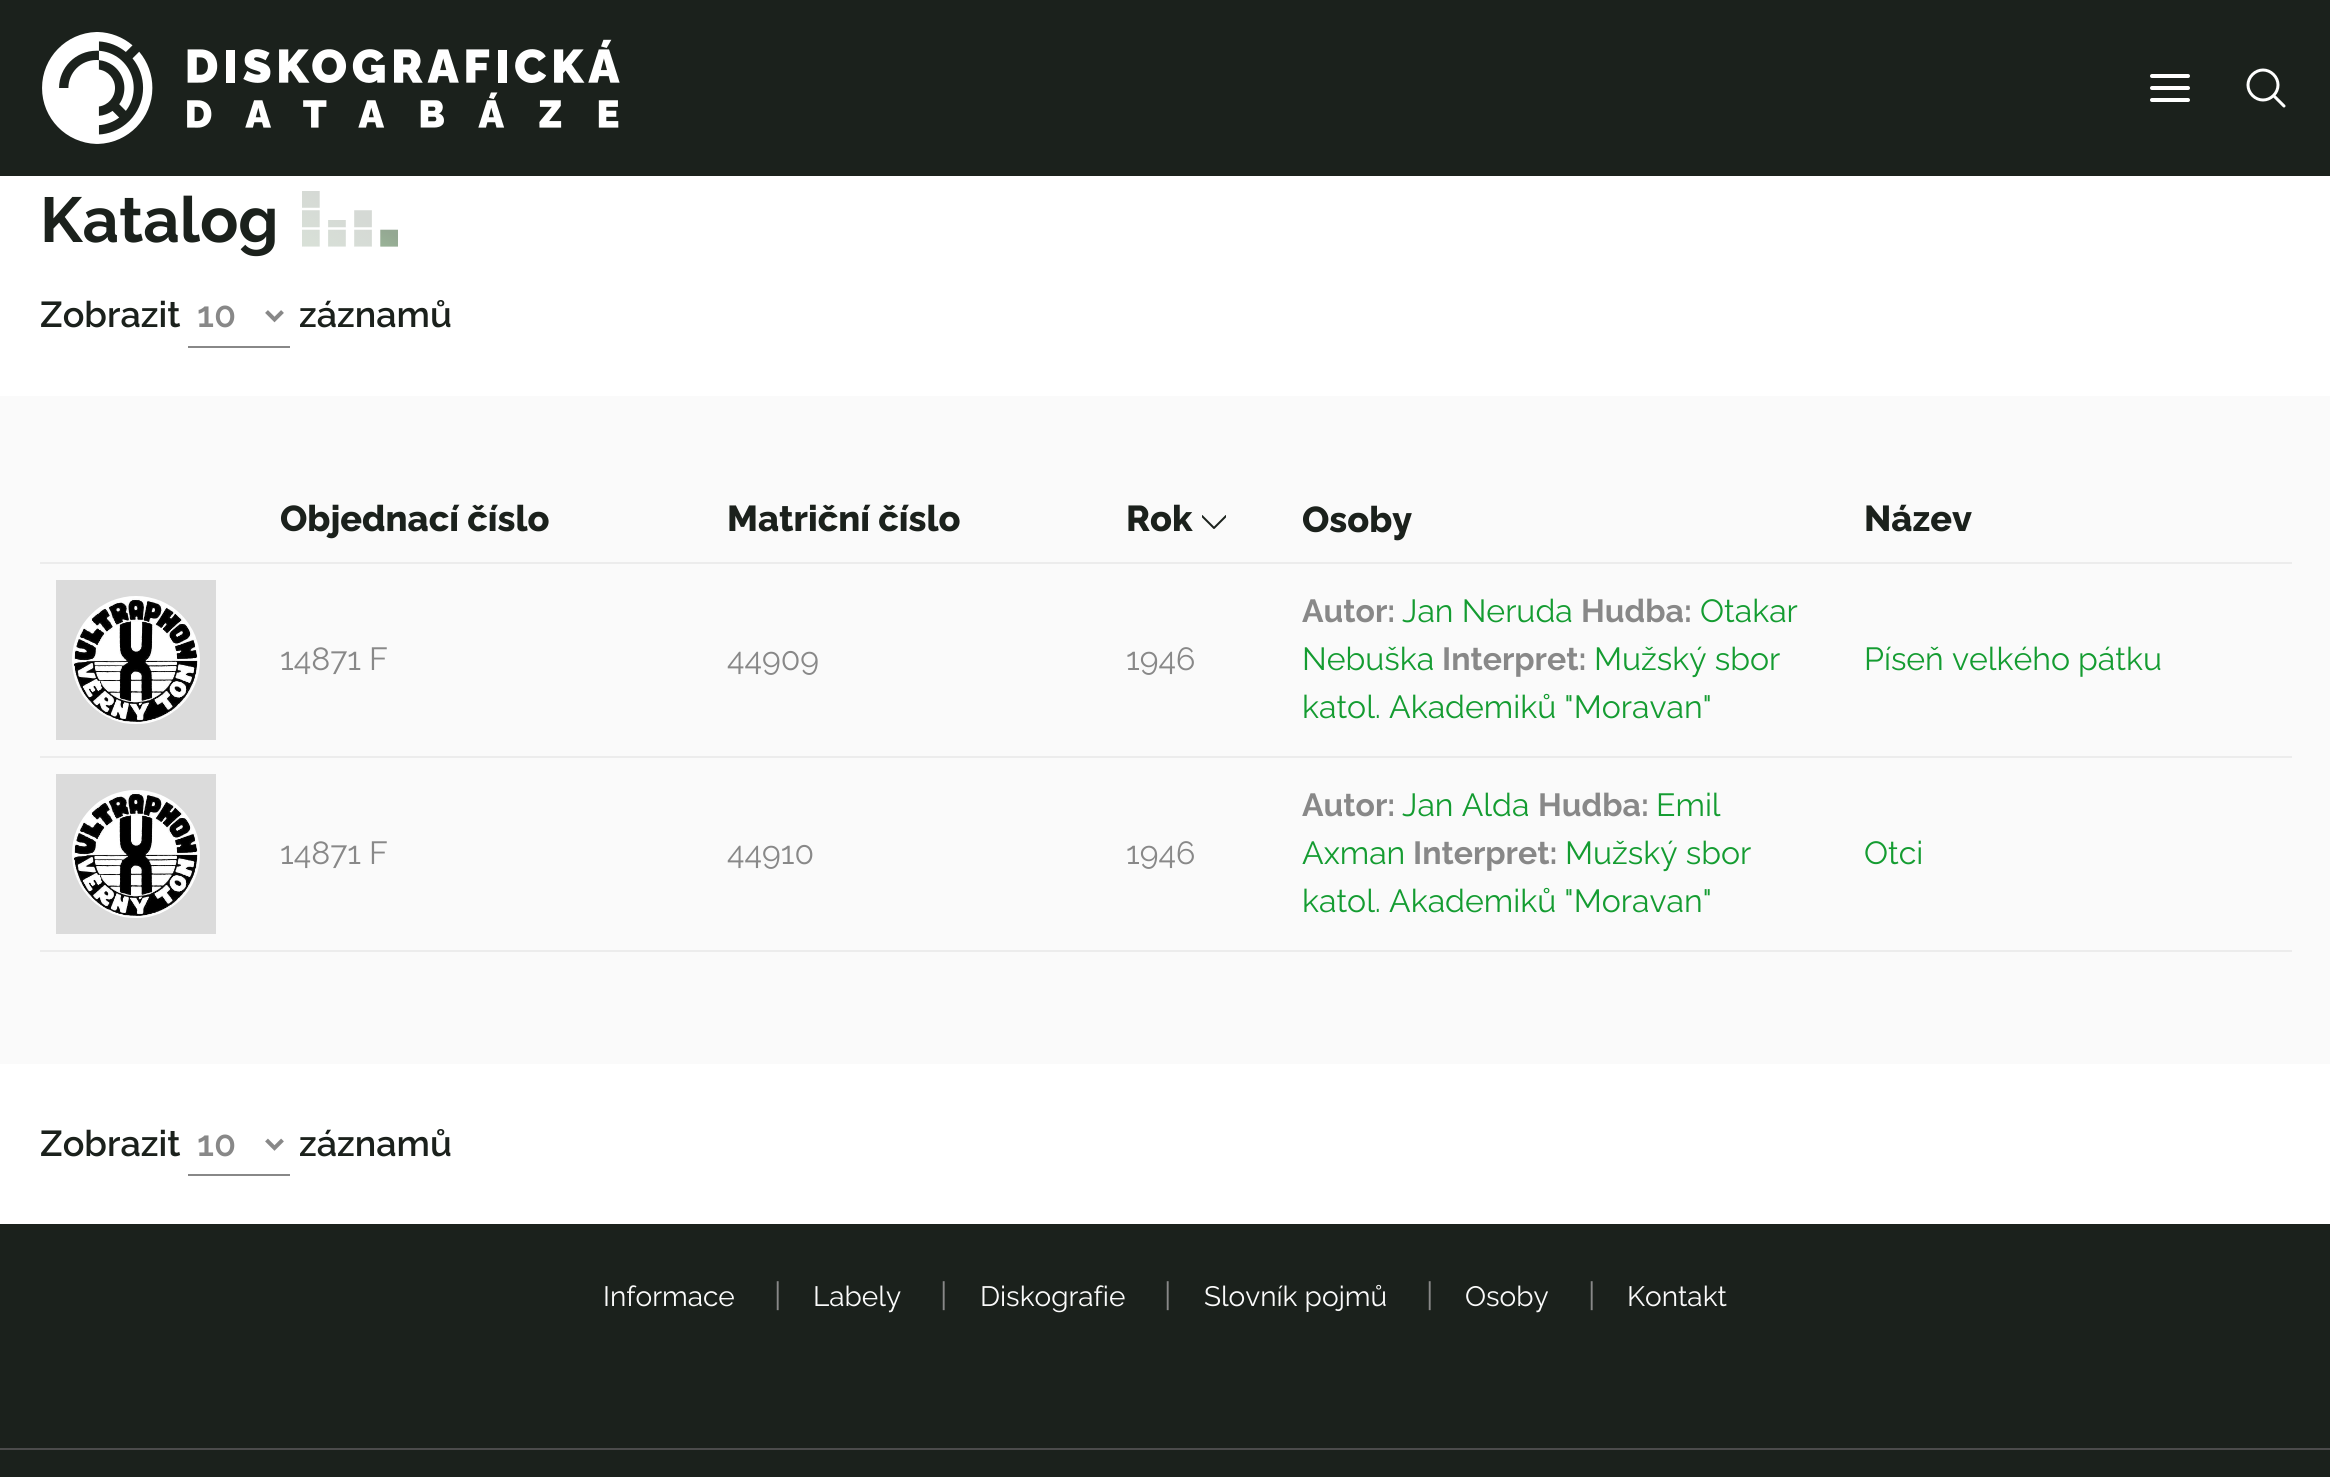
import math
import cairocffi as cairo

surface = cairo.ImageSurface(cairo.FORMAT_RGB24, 2330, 1477)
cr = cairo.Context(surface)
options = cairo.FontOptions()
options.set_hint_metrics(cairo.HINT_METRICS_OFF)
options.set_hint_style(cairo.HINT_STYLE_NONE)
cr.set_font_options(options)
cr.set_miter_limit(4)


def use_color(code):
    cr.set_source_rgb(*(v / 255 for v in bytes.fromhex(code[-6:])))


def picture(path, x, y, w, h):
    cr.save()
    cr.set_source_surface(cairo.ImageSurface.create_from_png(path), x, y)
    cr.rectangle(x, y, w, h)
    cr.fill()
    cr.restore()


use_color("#ffffff")
cr.paint()
use_color("#1b211c")
cr.rectangle(0, 0, 2330, 176)
cr.fill()
picture("img1.png", 42, 32, 578, 112)
cr.new_path()
cr.move_to(2152, 88)
cr.line_to(2188, 88)
cr.move_to(2152, 76)
cr.line_to(2188, 76)
cr.move_to(2152, 100)
cr.line_to(2188, 100)
use_color("#ffffff")
cr.set_line_width(4)
cr.set_line_cap(cairo.LINE_CAP_ROUND)
cr.set_line_join(cairo.LINE_JOIN_ROUND)
cr.stroke()
cr.new_path()
cr.move_to(2284, 106)
cr.line_to(2273.5, 95.5)
cr.move_to(2273.5, 95.5)
cr.curve_to(2279.5, 89.5, 2279.5, 80.5, 2273.5, 74.5)
cr.curve_to(2267.5, 68.5, 2258.5, 68.5, 2252.5, 74.5)
cr.curve_to(2246.5, 80.5, 2246.5, 89.5, 2252.5, 95.5)
cr.curve_to(2258.5, 101.5, 2267.5, 101.5, 2273.5, 95.5)
cr.close_path()
cr.set_line_width(3)
cr.stroke()
cr.select_font_face("Raleway", cairo.FONT_SLANT_NORMAL, cairo.FONT_WEIGHT_BOLD)
cr.set_font_size(63.5)
use_color("#1b211c")
cr.move_to(40, 242)
cr.show_text("Katalog")
picture("img2.png", 302, 191, 96, 56)
cr.select_font_face("Raleway SemiBold")
cr.set_font_size(36)
cr.move_to(40, 327)
cr.show_text("Zobrazit")
use_color("#888888")
cr.rectangle(188, 346, 102, 2)
cr.fill()
cr.new_path()
cr.move_to(266.5, 311.5)
cr.line_to(274.5, 319.5)
cr.line_to(282.5, 311.5)
cr.set_line_width(4)
cr.set_line_cap(cairo.LINE_CAP_BUTT)
cr.set_line_join(cairo.LINE_JOIN_MITER)
cr.stroke()
cr.move_to(197, 327)
cr.show_text("10")
use_color("#1b211c")
cr.move_to(299, 327)
cr.show_text("záznamů")
use_color("#fafafa")
cr.rectangle(0, 396, 2330, 668)
cr.fill()
cr.select_font_face("Raleway ExtraBold")
use_color("#1b211c")
cr.move_to(280, 531)
cr.show_text("Objednací číslo")
cr.move_to(727, 531)
cr.show_text("Matriční číslo")
cr.move_to(1126, 531)
cr.show_text("Rok")
cr.save()
cr.rectangle(1202, 498, 24, 48)
cr.clip()
cr.new_path()
cr.move_to(1202, 516)
cr.line_to(1214, 528)
cr.line_to(1226, 516)
cr.set_line_width(2)
cr.set_line_cap(cairo.LINE_CAP_ROUND)
cr.set_line_join(cairo.LINE_JOIN_ROUND)
cr.stroke()
cr.restore()
cr.move_to(1302, 532)
cr.show_text("Osoby")
use_color("#ececec")
cr.rectangle(40, 562, 2252, 2)
cr.fill()
use_color("#1b211c")
cr.move_to(1864, 531)
cr.show_text("Název")
use_color("#dbdbdb")
cr.rectangle(56, 580, 160, 160)
cr.fill()
picture("img3.png", 72, 596, 128, 128)
cr.select_font_face("Raleway")
cr.set_font_size(32)
use_color("#888888")
cr.move_to(280, 670)
cr.show_text("14871 F")
cr.move_to(727, 670)
cr.show_text("44909")
cr.move_to(1126, 670)
cr.show_text("1946")
cr.select_font_face("Raleway", cairo.FONT_SLANT_NORMAL, cairo.FONT_WEIGHT_BOLD)
cr.move_to(1302, 622)
cr.show_text("Autor:")
cr.select_font_face("Raleway")
use_color("#149c31")
cr.move_to(1402, 622)
cr.show_text("Jan Neruda")
cr.select_font_face("Raleway", cairo.FONT_SLANT_NORMAL, cairo.FONT_WEIGHT_BOLD)
use_color("#888888")
cr.move_to(1581, 622)
cr.show_text("Hudba:")
cr.select_font_face("Raleway")
use_color("#149c31")
cr.move_to(1700, 622)
cr.show_text("Otakar")
cr.move_to(1302, 670)
cr.show_text("Nebuška")
cr.select_font_face("Raleway", cairo.FONT_SLANT_NORMAL, cairo.FONT_WEIGHT_BOLD)
use_color("#888888")
cr.move_to(1442, 670)
cr.show_text("Interpret:")
cr.select_font_face("Raleway")
use_color("#149c31")
cr.move_to(1594, 670)
cr.show_text("Mužský sbor")
cr.move_to(1302, 718)
cr.show_text("katol. Akademiků \"Moravan\"")
use_color("#ececec")
cr.rectangle(40, 756, 2252, 2)
cr.fill()
use_color("#149c31")
cr.move_to(1864, 670)
cr.show_text("Píseň velkého pátku")
use_color("#dbdbdb")
cr.rectangle(56, 774, 160, 160)
cr.fill()
picture("img4.png", 72, 790, 128, 128)
use_color("#888888")
cr.move_to(280, 864)
cr.show_text("14871 F")
cr.move_to(727, 864)
cr.show_text("44910")
cr.move_to(1126, 864)
cr.show_text("1946")
cr.select_font_face("Raleway", cairo.FONT_SLANT_NORMAL, cairo.FONT_WEIGHT_BOLD)
cr.move_to(1302, 816)
cr.show_text("Autor:")
cr.select_font_face("Raleway")
use_color("#149c31")
cr.move_to(1402, 816)
cr.show_text("Jan Alda")
cr.select_font_face("Raleway", cairo.FONT_SLANT_NORMAL, cairo.FONT_WEIGHT_BOLD)
use_color("#888888")
cr.move_to(1538, 816)
cr.show_text("Hudba:")
cr.select_font_face("Raleway")
use_color("#149c31")
cr.move_to(1656, 816)
cr.show_text("Emil")
cr.move_to(1302, 864)
cr.show_text("Axman")
cr.select_font_face("Raleway", cairo.FONT_SLANT_NORMAL, cairo.FONT_WEIGHT_BOLD)
use_color("#888888")
cr.move_to(1413, 864)
cr.show_text("Interpret:")
cr.select_font_face("Raleway")
use_color("#149c31")
cr.move_to(1565, 864)
cr.show_text("Mužský sbor")
cr.move_to(1302, 912)
cr.show_text("katol. Akademiků \"Moravan\"")
use_color("#ececec")
cr.rectangle(40, 950, 2252, 2)
cr.fill()
use_color("#149c31")
cr.move_to(1864, 864)
cr.show_text("Otci")
cr.select_font_face("Raleway SemiBold")
cr.set_font_size(36)
use_color("#1b211c")
cr.move_to(40, 1156)
cr.show_text("Zobrazit")
use_color("#888888")
cr.rectangle(188, 1174, 102, 2)
cr.fill()
cr.new_path()
cr.move_to(266.5, 1140)
cr.line_to(274.5, 1148)
cr.line_to(282.5, 1140)
cr.stroke()
cr.move_to(197, 1156)
cr.show_text("10")
use_color("#1b211c")
cr.move_to(299, 1156)
cr.show_text("záznamů")
cr.rectangle(0, 1224, 2330, 253)
cr.fill()
cr.select_font_face("Raleway")
cr.set_font_size(28)
use_color("#fafafa")
cr.move_to(603, 1306)
cr.show_text("Informace")
cr.set_font_size(32)
use_color("#888888")
cr.move_to(774, 1306)
cr.show_text("|")
cr.set_font_size(28)
use_color("#fafafa")
cr.move_to(813, 1306)
cr.show_text("Labely")
cr.set_font_size(32)
use_color("#888888")
cr.move_to(940, 1306)
cr.show_text("|")
cr.set_font_size(28)
use_color("#fafafa")
cr.move_to(980, 1306)
cr.show_text("Diskografie")
cr.set_font_size(32)
use_color("#888888")
cr.move_to(1164, 1306)
cr.show_text("|")
cr.set_font_size(28)
use_color("#fafafa")
cr.move_to(1204, 1306)
cr.show_text("Slovník pojmů")
cr.set_font_size(32)
use_color("#888888")
cr.move_to(1426, 1306)
cr.show_text("|")
cr.set_font_size(28)
use_color("#fafafa")
cr.move_to(1465, 1306)
cr.show_text("Osoby")
cr.set_font_size(32)
use_color("#888888")
cr.move_to(1588, 1306)
cr.show_text("|")
cr.set_font_size(28)
use_color("#fafafa")
cr.move_to(1627, 1306)
cr.show_text("Kontakt")
use_color("#4b4b4b")
cr.rectangle(0, 1448, 2330, 2)
cr.fill()
surface.write_to_png("result.png")
